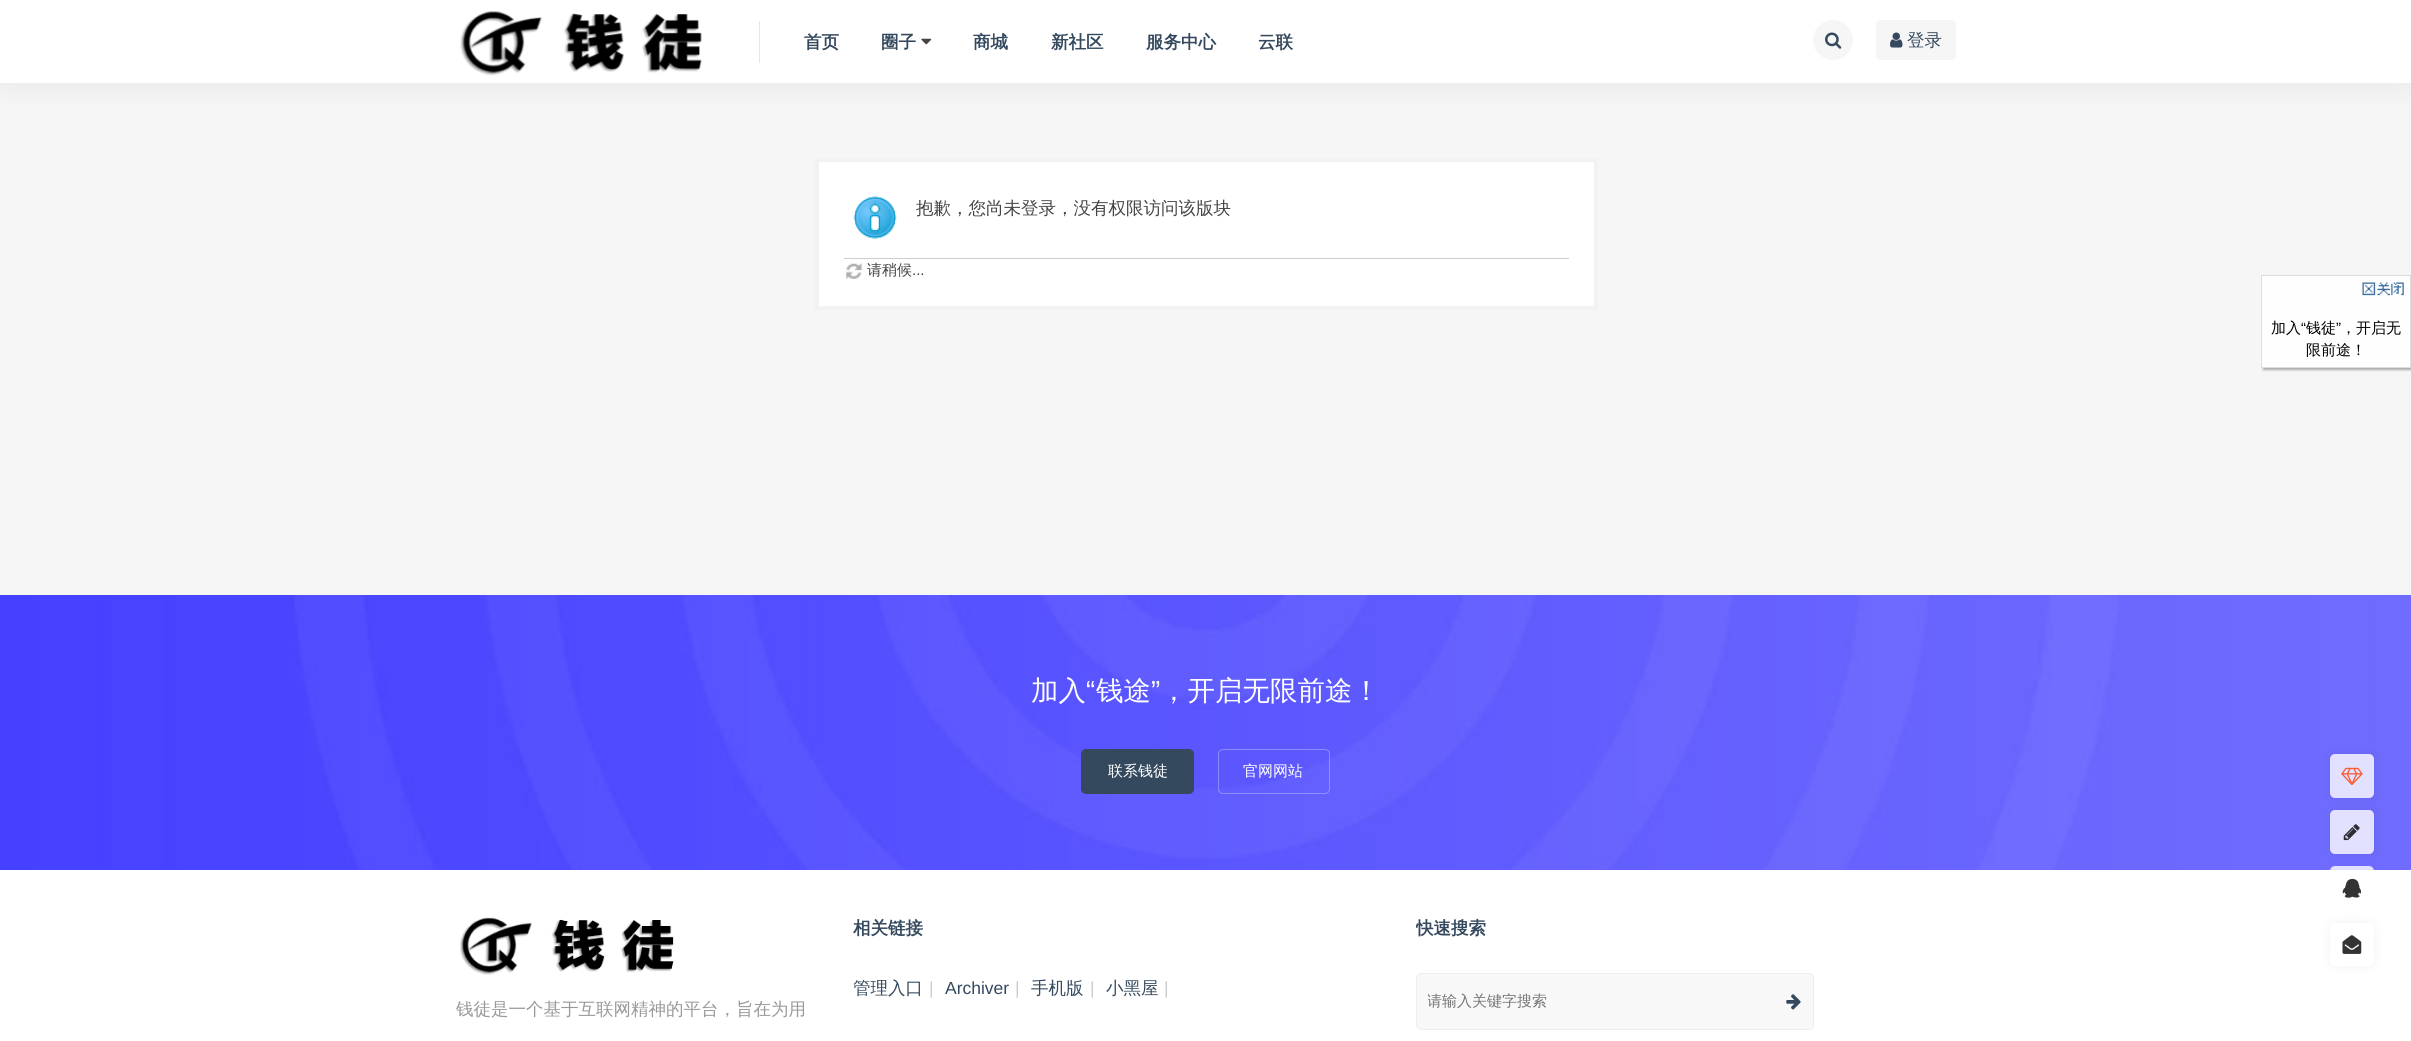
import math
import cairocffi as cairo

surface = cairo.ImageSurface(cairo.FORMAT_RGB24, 2411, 1041)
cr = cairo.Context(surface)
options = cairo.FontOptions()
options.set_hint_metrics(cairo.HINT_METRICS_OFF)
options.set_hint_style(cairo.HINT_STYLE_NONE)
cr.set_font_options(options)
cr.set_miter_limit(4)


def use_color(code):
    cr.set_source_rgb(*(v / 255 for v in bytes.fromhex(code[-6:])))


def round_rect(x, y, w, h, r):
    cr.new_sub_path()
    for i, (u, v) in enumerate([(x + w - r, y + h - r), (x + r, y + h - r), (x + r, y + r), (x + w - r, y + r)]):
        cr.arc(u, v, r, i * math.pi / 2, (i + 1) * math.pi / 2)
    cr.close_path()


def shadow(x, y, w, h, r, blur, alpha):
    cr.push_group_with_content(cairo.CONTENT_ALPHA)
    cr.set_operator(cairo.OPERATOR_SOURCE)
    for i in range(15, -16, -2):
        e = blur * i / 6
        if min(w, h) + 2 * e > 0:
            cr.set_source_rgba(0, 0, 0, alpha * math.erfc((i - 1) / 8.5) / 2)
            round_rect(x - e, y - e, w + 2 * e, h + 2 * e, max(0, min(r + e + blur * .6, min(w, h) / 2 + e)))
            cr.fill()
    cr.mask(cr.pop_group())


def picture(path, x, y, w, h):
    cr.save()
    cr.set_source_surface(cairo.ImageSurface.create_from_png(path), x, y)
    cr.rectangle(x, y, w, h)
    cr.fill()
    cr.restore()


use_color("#f6f6f6")
cr.paint()
use_color("#000000")
shadow(0, 0, 2411, 83, 0, 19, 0.07)
use_color("#ffffff")
cr.rectangle(0, 0, 2411, 83)
cr.fill()
picture("img1.png", 460, 11, 242, 65)
use_color("#e6e6e6")
cr.rectangle(759, 21, 1, 42)
cr.fill()
cr.select_font_face("WenQuanYi Zen Hei", cairo.FONT_SLANT_NORMAL, cairo.FONT_WEIGHT_BOLD)
cr.set_font_size(17.5)
use_color("#34495e")
cr.move_to(804, 48)
cr.show_text("首页")
cr.move_to(881, 48)
cr.show_text("圈子")
picture("img2.png", 921, 38, 11, 7)
cr.move_to(973, 48)
cr.show_text("商城")
cr.move_to(1051, 48)
cr.show_text("新社区")
cr.move_to(1146, 48)
cr.show_text("服务中心")
cr.move_to(1258, 48)
cr.show_text("云联")
use_color("#f6f6f6")
cr.new_path()
cr.arc(1833, 40, 20, 0, 2 * math.pi)
cr.fill()
picture("img3.png", 1825, 32, 17, 17)
round_rect(1876, 20, 80, 40, 5)
cr.fill()
picture("img4.png", 1890, 32, 13, 16)
cr.select_font_face("WenQuanYi Zen Hei Medium")
use_color("#34495e")
cr.move_to(1907, 46)
cr.show_text("登录")
use_color("#ffffff")
cr.rectangle(817, 160, 779, 148)
cr.fill_preserve()
use_color("#f2f2f2")
cr.set_line_width(4)
cr.stroke()
picture("img5.png", 853, 196, 44, 43)
use_color("#444444")
cr.move_to(916, 214)
cr.show_text("抱歉，您尚未登录，没有权限访问该版块")
use_color("#cdcdcd")
cr.rectangle(844, 258, 725, 1)
cr.fill()
picture("img6.png", 846, 263, 17, 16)
cr.set_font_size(15)
use_color("#444444")
cr.move_to(867, 275)
cr.show_text("请稍候")
cr.select_font_face("Liberation Sans")
cr.move_to(912, 275)
cr.show_text("...")
use_color("#000000")
shadow(2263, 278, 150, 92, 0, 1, 0.3)
use_color("#fefefe")
cr.rectangle(2261.5, 275.5, 149, 92)
cr.fill_preserve()
use_color("#dddddd")
cr.set_line_width(1)
cr.stroke()
picture("img7.png", 2362, 282, 42, 14)
cr.select_font_face("WenQuanYi Zen Hei Medium")
use_color("#000000")
cr.move_to(2271, 333)
cr.show_text("加入")
cr.select_font_face("Liberation Sans")
cr.move_to(2301, 333)
cr.show_text("“")
cr.select_font_face("WenQuanYi Zen Hei Medium")
cr.move_to(2306, 333)
cr.show_text("钱徒")
cr.select_font_face("Liberation Sans")
cr.move_to(2336, 333)
cr.show_text("”")
cr.select_font_face("WenQuanYi Zen Hei Medium")
cr.move_to(2341, 333)
cr.show_text("，开启无")
cr.move_to(2306, 355)
cr.show_text("限前途！")
picture("img8.png", 0, 595, 2411, 275)
cr.set_font_size(27.5)
use_color("#ffffff")
cr.move_to(1031, 700)
cr.show_text("加入")
cr.select_font_face("Liberation Sans")
cr.move_to(1086, 700)
cr.show_text("“")
cr.select_font_face("WenQuanYi Zen Hei Medium")
cr.move_to(1096, 700)
cr.show_text("钱途")
cr.select_font_face("Liberation Sans")
cr.move_to(1151, 700)
cr.show_text("”")
cr.select_font_face("WenQuanYi Zen Hei Medium")
cr.move_to(1160, 700)
cr.show_text("，开启无限前途！")
use_color("#34495e")
round_rect(1081.5, 749.5, 112, 44, 4.5)
cr.fill_preserve()
cr.stroke()
cr.set_font_size(15)
use_color("#ffffff")
cr.move_to(1108, 776)
cr.show_text("联系钱徒")
round_rect(1218.5, 749.5, 111, 44, 4.5)
cr.set_source_rgba(1, 1, 1, 0.3)
cr.stroke()
use_color("#ffffff")
cr.move_to(1243, 776)
cr.show_text("官网网站")
use_color("#161533")
shadow(2330, 754, 44, 44, 5, 6, 0.07)
use_color("#e2e1ff")
round_rect(2330, 754, 44, 44, 5)
cr.fill()
picture("img9.png", 2341, 767, 22, 19)
use_color("#ffffff")
cr.rectangle(0, 870, 2411, 171)
cr.fill()
use_color("#000000")
shadow(2330, 810, 44, 44, 5, 6, 0.06)
use_color("#e2e1ff")
round_rect(2330, 810, 44, 44, 5)
cr.fill()
picture("img10.png", 2343, 824, 17, 17)
cr.set_source_rgba(1, 1, 1, 0.8)
round_rect(2330, 866, 44, 44, 5)
cr.fill()
picture("img11.png", 2342, 878, 19, 20)
use_color("#000000")
shadow(2330, 923, 44, 43, 5, 6, 0.06)
use_color("#ffffff")
round_rect(2330, 923, 44, 43, 5)
cr.fill()
picture("img12.png", 2342, 935, 20, 19)
picture("img13.png", 460, 917, 214, 58)
cr.set_font_size(17.5)
use_color("#999999")
cr.move_to(456, 1015)
cr.show_text("钱徒是一个基于互联网精神的平台，旨在为用")
cr.select_font_face("WenQuanYi Zen Hei", cairo.FONT_SLANT_NORMAL, cairo.FONT_WEIGHT_BOLD)
use_color("#34495e")
cr.move_to(853, 934)
cr.show_text("相关链接")
cr.select_font_face("WenQuanYi Zen Hei Medium")
cr.move_to(853, 994)
cr.show_text("管理入口")
cr.select_font_face("Liberation Sans")
use_color("#cccccc")
cr.move_to(929, 994)
cr.show_text("|")
use_color("#34495e")
cr.move_to(945, 994)
cr.show_text("Archiver")
use_color("#cccccc")
cr.move_to(1015, 994)
cr.show_text("|")
cr.select_font_face("WenQuanYi Zen Hei Medium")
use_color("#34495e")
cr.move_to(1031, 994)
cr.show_text("手机版")
cr.select_font_face("Liberation Sans")
use_color("#cccccc")
cr.move_to(1090, 994)
cr.show_text("|")
cr.select_font_face("WenQuanYi Zen Hei Medium")
use_color("#34495e")
cr.move_to(1106, 994)
cr.show_text("小黑屋")
cr.select_font_face("Liberation Sans")
use_color("#cccccc")
cr.move_to(1164, 994)
cr.show_text("|")
cr.save()
cr.rectangle(1416, 908, 465, 40)
cr.clip()
cr.select_font_face("WenQuanYi Zen Hei", cairo.FONT_SLANT_NORMAL, cairo.FONT_WEIGHT_BOLD)
use_color("#34495e")
cr.move_to(1416, 934)
cr.show_text("快速搜索")
cr.restore()
use_color("#f8f8f8")
round_rect(1416.5, 973.5, 397, 56, 4.5)
cr.fill_preserve()
use_color("#eeeeee")
cr.stroke()
cr.save()
cr.rectangle(1428, 991, 375, 22)
cr.clip()
cr.select_font_face("WenQuanYi Zen Hei Medium")
cr.set_font_size(15)
use_color("#757575")
cr.move_to(1427, 1006)
cr.show_text("请输入关键字搜索")
cr.restore()
picture("img14.png", 1786, 994, 15, 16)
surface.write_to_png("result.png")
